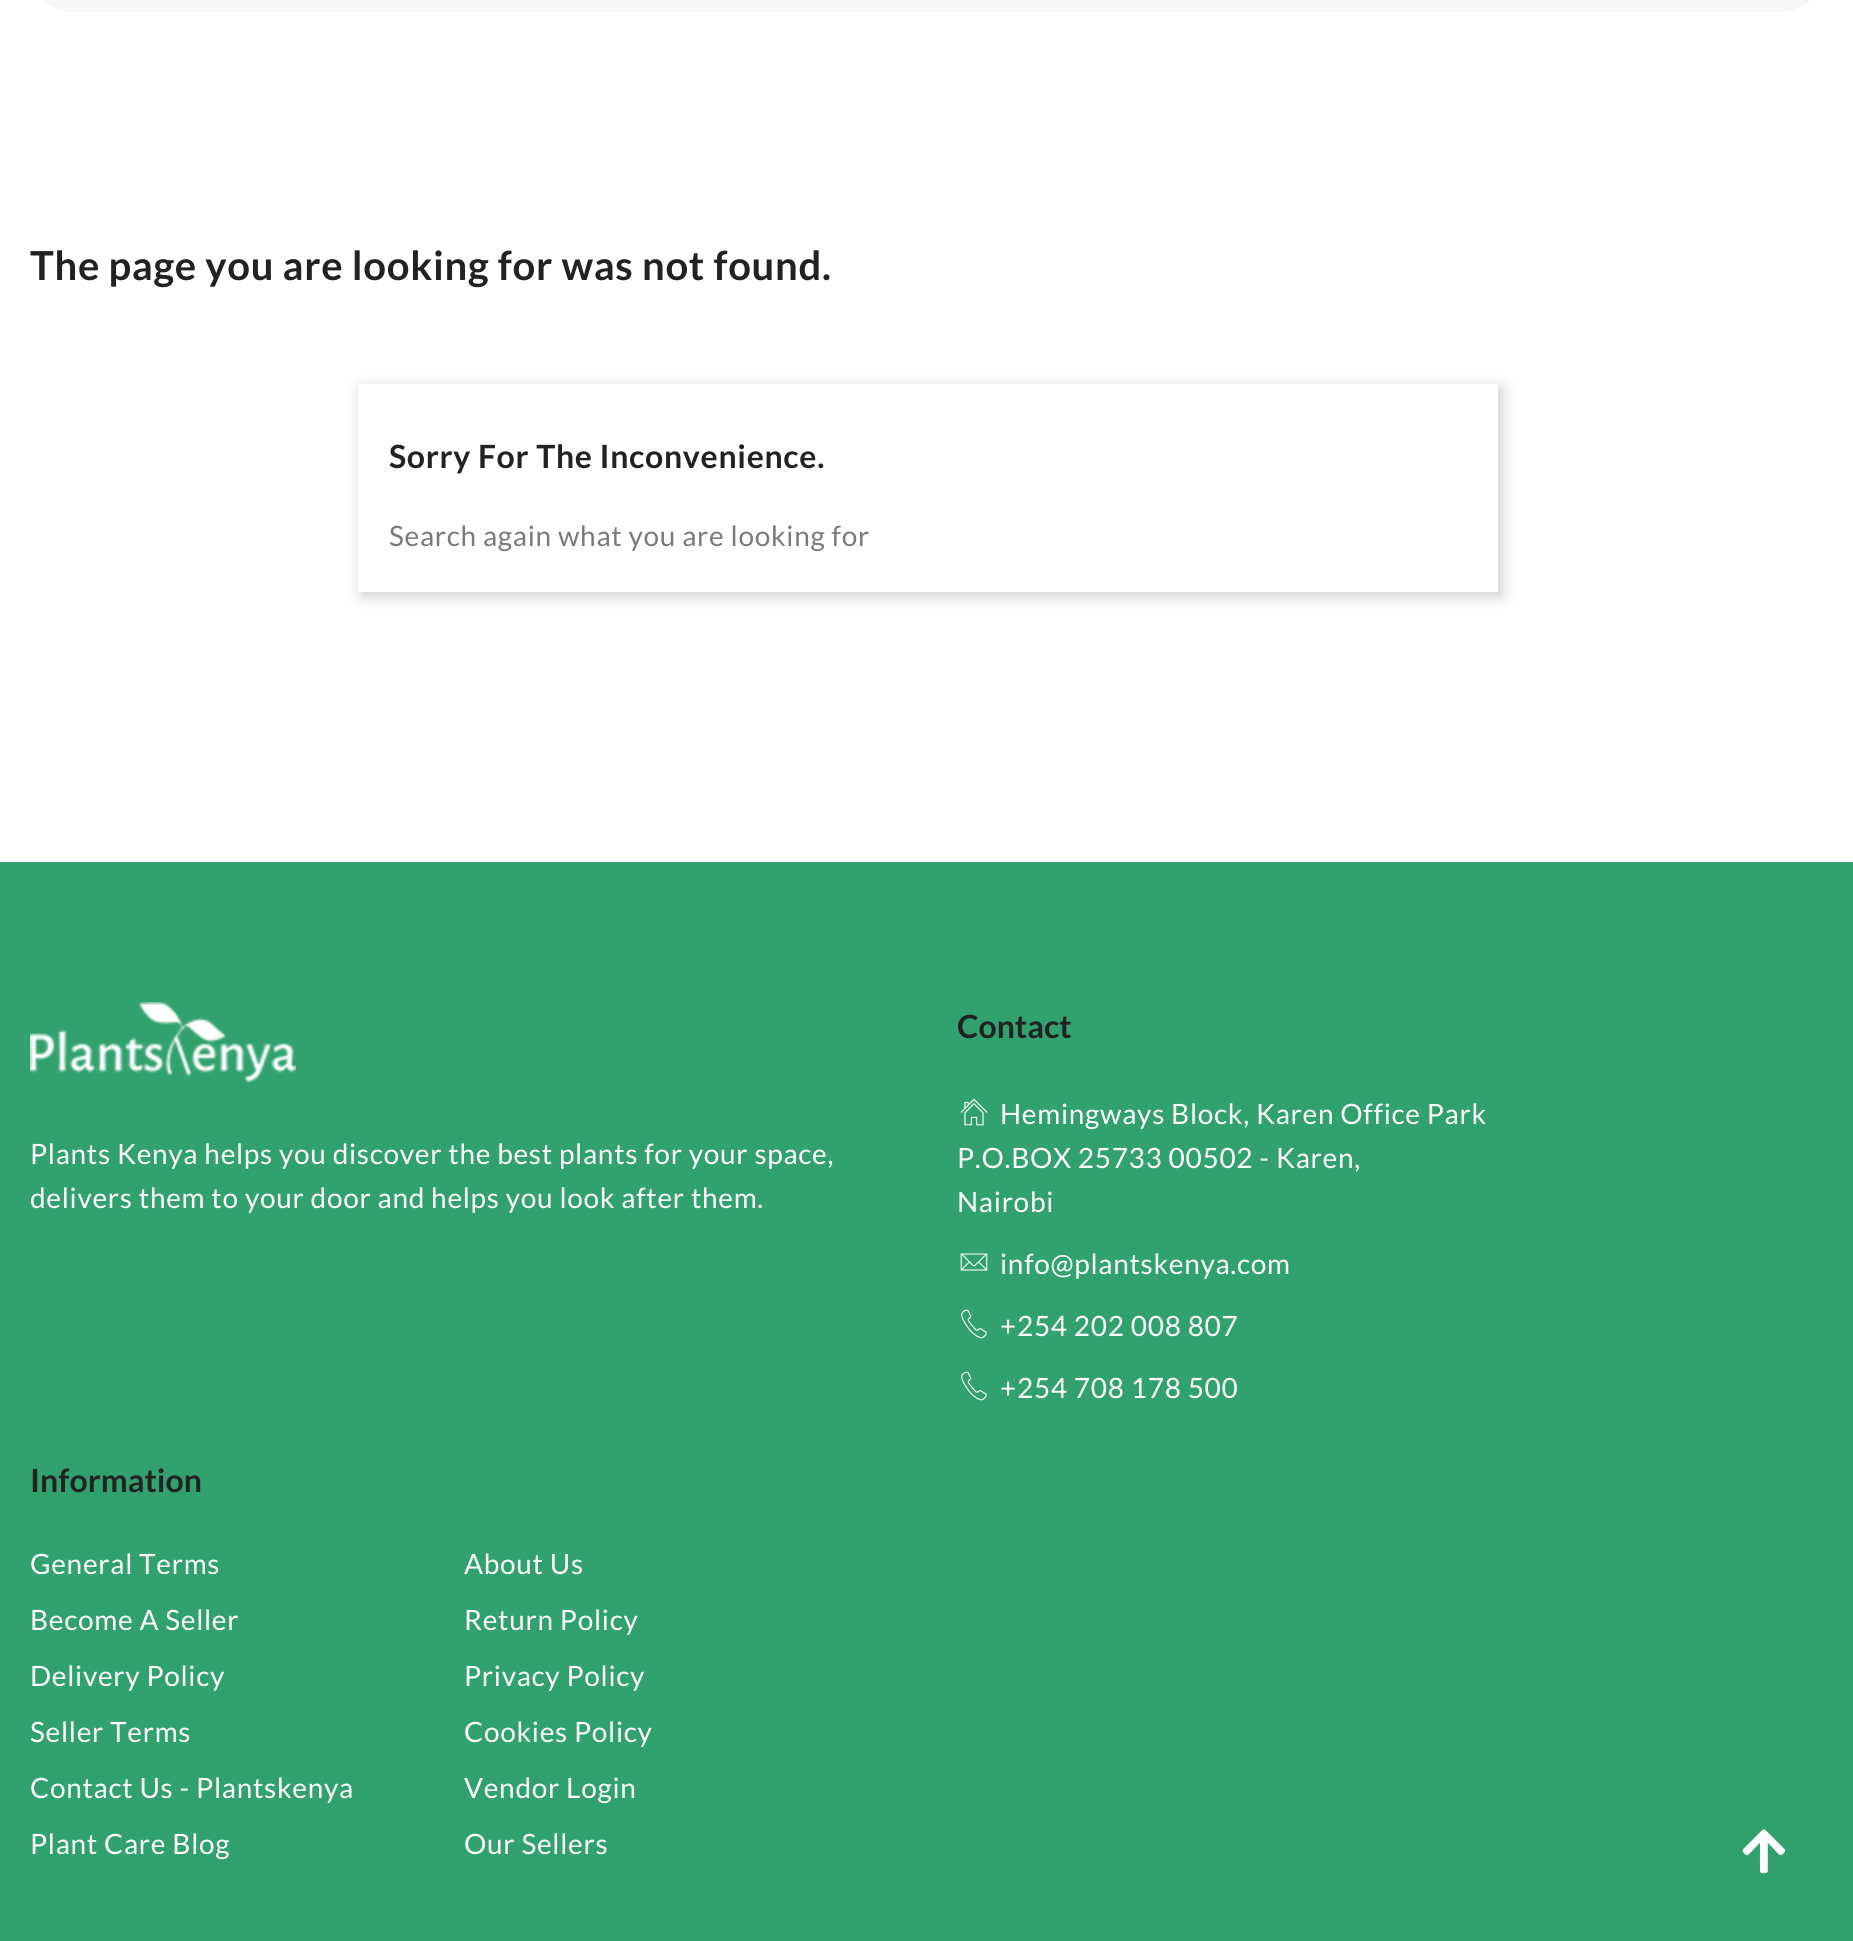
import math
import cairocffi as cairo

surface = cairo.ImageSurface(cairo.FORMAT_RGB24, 1853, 1941)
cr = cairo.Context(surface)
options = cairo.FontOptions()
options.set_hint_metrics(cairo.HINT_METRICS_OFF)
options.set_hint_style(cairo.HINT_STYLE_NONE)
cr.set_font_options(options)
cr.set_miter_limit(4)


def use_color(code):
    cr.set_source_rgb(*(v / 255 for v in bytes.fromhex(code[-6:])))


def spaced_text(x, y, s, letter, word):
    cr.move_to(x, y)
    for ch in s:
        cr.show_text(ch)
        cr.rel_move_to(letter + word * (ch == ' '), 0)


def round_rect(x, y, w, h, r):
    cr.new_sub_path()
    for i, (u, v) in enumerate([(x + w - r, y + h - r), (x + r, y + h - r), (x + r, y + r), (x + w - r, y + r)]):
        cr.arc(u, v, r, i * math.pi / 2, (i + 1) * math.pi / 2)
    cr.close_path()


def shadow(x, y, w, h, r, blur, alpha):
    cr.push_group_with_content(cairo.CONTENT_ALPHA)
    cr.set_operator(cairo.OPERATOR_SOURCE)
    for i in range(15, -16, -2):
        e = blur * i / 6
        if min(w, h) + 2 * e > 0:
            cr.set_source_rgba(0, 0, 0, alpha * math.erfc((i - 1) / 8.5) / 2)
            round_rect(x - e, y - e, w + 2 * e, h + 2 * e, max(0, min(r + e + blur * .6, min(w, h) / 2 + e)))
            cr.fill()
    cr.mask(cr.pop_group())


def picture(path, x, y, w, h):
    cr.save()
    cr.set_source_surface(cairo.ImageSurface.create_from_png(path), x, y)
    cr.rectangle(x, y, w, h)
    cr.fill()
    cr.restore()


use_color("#ffffff")
cr.paint()
use_color("#f7f7f7")
round_rect(30, -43, 1794, 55, 43)
cr.fill()
cr.select_font_face("Lato", cairo.FONT_SLANT_NORMAL, cairo.FONT_WEIGHT_BOLD)
cr.set_font_size(40)
use_color("#222222")
spaced_text(30, 280, "The page you are looking for was not found.", 0.7, 0)
cr.save()
cr.set_fill_rule(cairo.FILL_RULE_EVEN_ODD)
cr.new_path()
cr.move_to(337, 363)
cr.line_to(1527, 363)
cr.line_to(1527, 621)
cr.line_to(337, 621)
cr.close_path()
cr.move_to(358, 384)
cr.line_to(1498, 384)
cr.line_to(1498, 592)
cr.line_to(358, 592)
cr.close_path()
cr.clip()
use_color("#000000")
shadow(362, 388, 1140, 208, 0, 8, 0.2)
cr.restore()
cr.set_font_size(32)
spaced_text(389, 468, "Sorry For The Inconvenience.", 0.7, 0)
cr.select_font_face("Lato")
cr.set_font_size(28)
use_color("#7a7a7a")
spaced_text(389, 546, "Search again what you are looking for", 0.7, 0)
use_color("#31a26d")
cr.rectangle(0, 862, 1853, 1079)
cr.fill()
picture("img1.png", 30, 1002, 266, 80)
use_color("#ffffff")
spaced_text(30, 1164, "Plants Kenya helps you discover the best plants for your space,", 0.7, 0)
spaced_text(30, 1208, "delivers them to your door and helps you look after them.", 0.7, 0)
cr.select_font_face("Lato", cairo.FONT_SLANT_NORMAL, cairo.FONT_WEIGHT_BOLD)
cr.set_font_size(32)
use_color("#222222")
cr.move_to(957, 1038)
cr.show_text("Contact")
picture("img2.png", 960, 1098, 28, 28)
cr.select_font_face("Lato")
cr.set_font_size(28)
use_color("#ffffff")
spaced_text(1000, 1124, "Hemingways Block, Karen Office Park", 0.7, 0)
spaced_text(957, 1168, "P.O.BOX 25733 00502 - Karen,", 0.7, 0)
spaced_text(957, 1212, "Nairobi", 0.7, 0)
picture("img3.png", 960, 1253, 28, 18)
spaced_text(1000, 1274, "info@plantskenya.com", 0.7, 0)
picture("img4.png", 961, 1309, 26, 30)
spaced_text(1000, 1336, "+254 202 008 807", 0.7, 0)
picture("img4.png", 961, 1371, 26, 30)
spaced_text(1000, 1398, "+254 708 178 500", 0.7, 0)
cr.select_font_face("Lato", cairo.FONT_SLANT_NORMAL, cairo.FONT_WEIGHT_BOLD)
cr.set_font_size(32)
use_color("#222222")
cr.move_to(30, 1492)
cr.show_text("Information")
cr.select_font_face("Lato")
cr.set_font_size(28)
use_color("#ffffff")
spaced_text(30, 1574, "General Terms", 0.7, 0)
spaced_text(464, 1574, "About Us", 0.7, 0)
spaced_text(30, 1630, "Become A Seller", 0.7, 0)
spaced_text(464, 1630, "Return Policy", 0.7, 0)
spaced_text(30, 1686, "Delivery Policy", 0.7, 0)
spaced_text(464, 1686, "Privacy Policy", 0.7, 0)
spaced_text(30, 1742, "Seller Terms", 0.7, 0)
spaced_text(464, 1742, "Cookies Policy", 0.7, 0)
spaced_text(30, 1798, "Contact Us - Plantskenya", 0.7, 0)
spaced_text(464, 1798, "Vendor Login", 0.7, 0)
spaced_text(30, 1854, "Plant Care Blog", 0.7, 0)
spaced_text(464, 1854, "Our Sellers", 0.7, 0)
use_color("#30a16a")
cr.new_path()
cr.arc(1764, 1852, 40, 0, 2 * math.pi)
cr.fill()
picture("img5.png", 1742, 1829, 44, 45)
surface.write_to_png("result.png")
